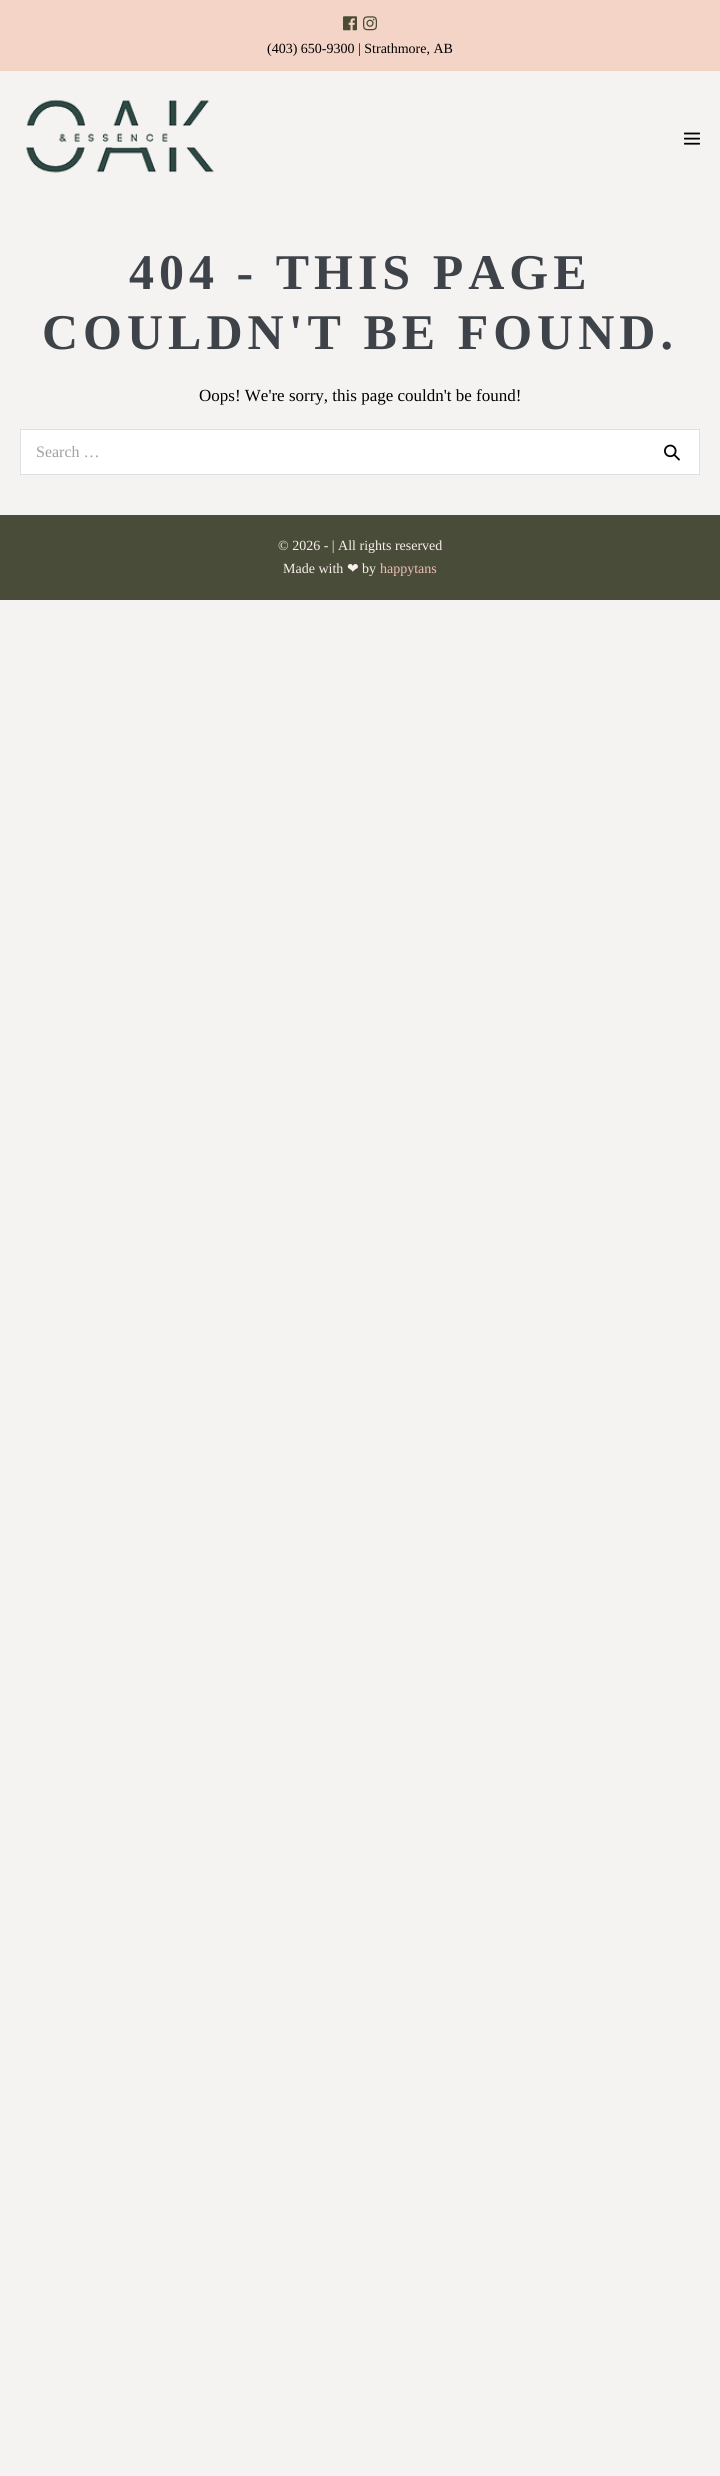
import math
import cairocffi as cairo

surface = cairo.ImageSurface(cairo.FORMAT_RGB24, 720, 2476)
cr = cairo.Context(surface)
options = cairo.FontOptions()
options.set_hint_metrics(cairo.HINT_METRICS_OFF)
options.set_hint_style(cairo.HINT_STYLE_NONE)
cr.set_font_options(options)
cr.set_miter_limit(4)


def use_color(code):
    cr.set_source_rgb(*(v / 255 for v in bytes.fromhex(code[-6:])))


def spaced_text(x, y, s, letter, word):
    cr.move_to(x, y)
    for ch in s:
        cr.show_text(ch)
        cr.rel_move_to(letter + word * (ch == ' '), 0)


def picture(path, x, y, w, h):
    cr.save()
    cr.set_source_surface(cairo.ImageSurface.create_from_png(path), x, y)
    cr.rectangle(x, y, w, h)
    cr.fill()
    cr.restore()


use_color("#f5f3f1")
cr.paint()
use_color("#f4d4c7")
cr.rectangle(0, 0, 720, 71)
cr.fill()
picture("img1.png", 343, 16, 14, 15)
picture("img2.png", 363, 16, 14, 15)
cr.select_font_face("Liberation Serif")
cr.set_font_size(14)
use_color("#000000")
cr.move_to(267, 53)
cr.show_text("(403) 650-9300 | Strathmore, AB")
picture("img3.png", 26, 99, 188, 74)
picture("img4.png", 684, 132, 16, 13)
cr.select_font_face("Liberation Serif", cairo.FONT_SLANT_NORMAL, cairo.FONT_WEIGHT_BOLD)
cr.set_font_size(50)
use_color("#3e4349")
spaced_text(129, 289, "404 - THIS PAGE", 5, 0)
spaced_text(42, 349, "COULDN'T BE FOUND.", 5, 0)
cr.select_font_face("Liberation Serif")
cr.set_font_size(17)
use_color("#000000")
cr.move_to(199, 401)
cr.show_text("Oops! We're sorry, this page couldn't be found!")
use_color("#ffffff")
cr.rectangle(20.5, 429.5, 679, 45)
cr.fill_preserve()
use_color("#dedee5")
cr.set_line_width(1)
cr.stroke()
cr.set_font_size(16)
use_color("#9fa1a4")
cr.move_to(36, 457)
cr.show_text("Search …")
picture("img5.png", 664, 444, 16, 17)
use_color("#494c39")
cr.rectangle(0, 515, 720, 85)
cr.fill()
cr.set_font_size(14)
use_color("#f9f0eb")
cr.move_to(278, 550)
cr.show_text("© 2026 - | All rights reserved")
cr.move_to(283, 573)
cr.show_text("Made with")
cr.select_font_face("DejaVu Sans")
cr.move_to(347, 573)
cr.show_text("❤")
cr.select_font_face("Liberation Serif")
cr.move_to(362, 573)
cr.show_text("by")
use_color("#f0beb7")
cr.move_to(380, 573)
cr.show_text("happytans")
surface.write_to_png("result.png")
